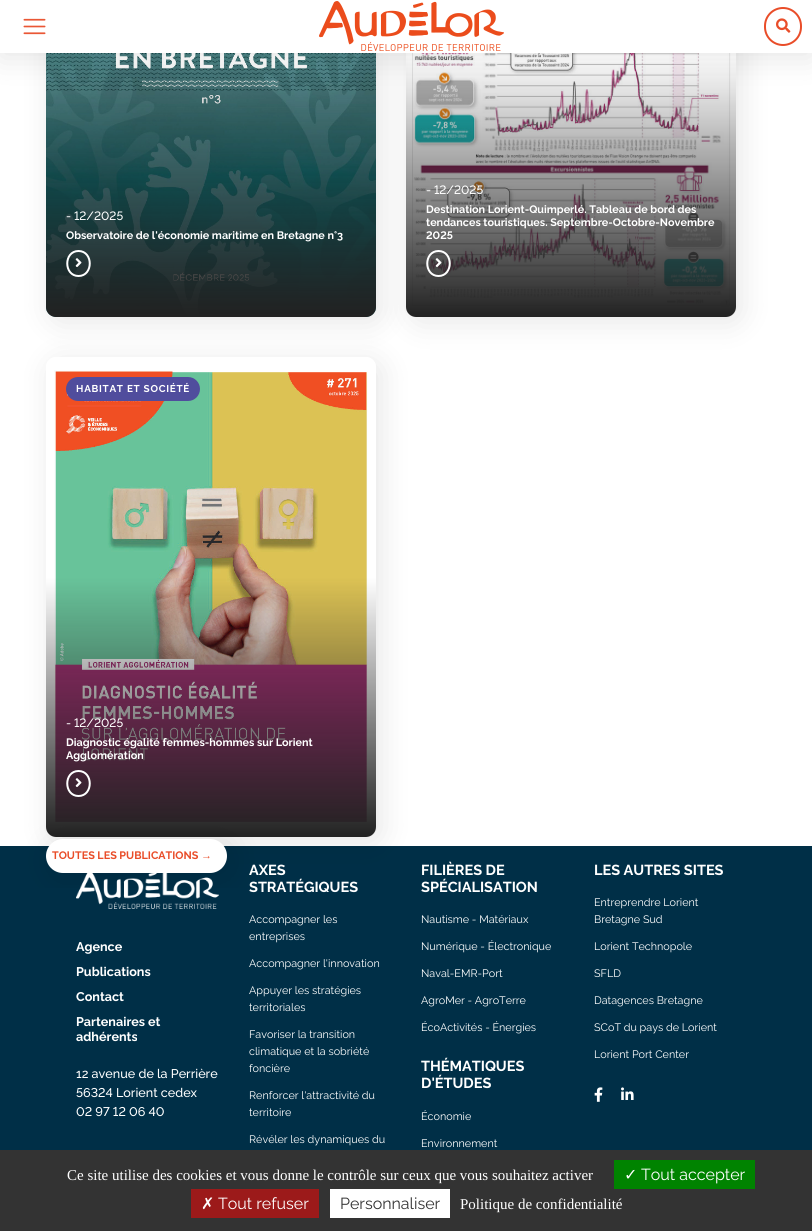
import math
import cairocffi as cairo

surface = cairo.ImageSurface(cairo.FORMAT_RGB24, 812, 1231)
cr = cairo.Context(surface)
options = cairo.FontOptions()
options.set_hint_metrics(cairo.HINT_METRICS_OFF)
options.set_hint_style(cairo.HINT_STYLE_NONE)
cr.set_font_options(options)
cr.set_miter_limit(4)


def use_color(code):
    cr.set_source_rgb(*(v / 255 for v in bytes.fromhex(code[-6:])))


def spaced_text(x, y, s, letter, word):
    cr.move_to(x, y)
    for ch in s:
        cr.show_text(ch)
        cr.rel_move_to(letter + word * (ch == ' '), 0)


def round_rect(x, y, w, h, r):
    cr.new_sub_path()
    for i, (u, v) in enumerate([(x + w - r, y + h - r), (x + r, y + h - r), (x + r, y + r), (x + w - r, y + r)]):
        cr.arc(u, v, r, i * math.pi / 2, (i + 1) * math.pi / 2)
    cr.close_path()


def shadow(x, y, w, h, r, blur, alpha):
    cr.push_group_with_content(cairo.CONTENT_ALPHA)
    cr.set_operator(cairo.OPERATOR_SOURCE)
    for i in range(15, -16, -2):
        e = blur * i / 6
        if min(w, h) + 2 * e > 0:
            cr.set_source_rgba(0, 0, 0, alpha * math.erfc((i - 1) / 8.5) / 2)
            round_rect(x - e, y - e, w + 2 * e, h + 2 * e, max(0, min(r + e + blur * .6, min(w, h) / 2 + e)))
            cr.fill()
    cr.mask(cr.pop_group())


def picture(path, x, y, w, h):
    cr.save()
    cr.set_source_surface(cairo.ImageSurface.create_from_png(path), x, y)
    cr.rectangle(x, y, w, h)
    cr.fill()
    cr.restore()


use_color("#ffffff")
cr.paint()
use_color("#000000")
shadow(51, -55, 330, 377, 10, 15, 0.1)
picture("img4.png", 46, 53, 330, 264)
gradient = cairo.LinearGradient(211, 57, 211, 317)
gradient.add_color_stop_rgba(0, 0.133, 0.133, 0.133, 0)
gradient.add_color_stop_rgba(1, 0.133, 0.133, 0.133, 1)
cr.set_source(gradient)
cr.new_path()
cr.move_to(46, 57)
cr.line_to(376, 57)
cr.line_to(376, 307)
cr.curve_to(376, 312.5, 371.5, 317, 366, 317)
cr.line_to(56, 317)
cr.curve_to(50.5, 317, 46, 312.5, 46, 307)
cr.close_path()
cr.fill()
cr.save()
cr.set_fill_rule(cairo.FILL_RULE_EVEN_ODD)
cr.new_path()
cr.move_to(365, 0)
cr.line_to(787, 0)
cr.line_to(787, 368)
cr.line_to(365, 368)
cr.close_path()
cr.move_to(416, -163)
cr.line_to(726, -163)
cr.curve_to(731.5, -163, 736, -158.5, 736, -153)
cr.line_to(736, 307)
cr.curve_to(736, 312.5, 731.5, 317, 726, 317)
cr.line_to(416, 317)
cr.curve_to(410.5, 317, 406, 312.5, 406, 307)
cr.line_to(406, -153)
cr.curve_to(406, -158.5, 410.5, -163, 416, -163)
cr.close_path()
cr.clip()
use_color("#000000")
shadow(411, -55, 330, 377, 10, 15, 0.1)
cr.restore()
picture("img6.png", 412, 53, 319, 254)
gradient = cairo.LinearGradient(571, 57, 571, 317)
gradient.add_color_stop_rgba(0, 0.133, 0.133, 0.133, 0)
gradient.add_color_stop_rgba(1, 0.133, 0.133, 0.133, 1)
cr.set_source(gradient)
cr.new_path()
cr.move_to(406, 57)
cr.line_to(736, 57)
cr.line_to(736, 307)
cr.curve_to(736, 312.5, 731.5, 317, 726, 317)
cr.line_to(416, 317)
cr.curve_to(410.5, 317, 406, 312.5, 406, 307)
cr.close_path()
cr.fill()
use_color("#000000")
shadow(0, 5, 812, 53, 0, 15, 0.1)
use_color("#ffffff")
cr.rectangle(0, 0, 812, 53)
cr.fill()
picture("img1.png", 23, 18, 23, 17)
picture("img2.png", 319, 1, 185, 50)
round_rect(765, 8, 36, 37, 18)
use_color("#e94d29")
cr.stroke()
picture("img3.png", 776, 18, 15, 15)
cr.select_font_face("Raleway Medium")
cr.set_font_size(12)
use_color("#ffffff")
cr.move_to(66, 220)
cr.show_text("-")
cr.select_font_face("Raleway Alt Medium")
cr.move_to(74, 220)
cr.show_text("12/2025")
cr.select_font_face("Raleway", cairo.FONT_SLANT_NORMAL, cairo.FONT_WEIGHT_BOLD)
cr.set_font_size(10.8)
cr.move_to(66, 239)
cr.show_text("Observatoire de l'économie maritime en Bretagne n°3")
cr.new_path()
cr.move_to(78.5, 251)
cr.curve_to(93.5, 251, 93.5, 276, 78.5, 276)
cr.curve_to(63.5, 276, 63.5, 251, 78.5, 251)
cr.close_path()
cr.stroke()
picture("img5.png", 75, 258, 7, 9)
cr.select_font_face("Raleway Medium")
cr.set_font_size(12)
cr.move_to(426, 194)
cr.show_text("-")
cr.select_font_face("Raleway Alt Medium")
cr.move_to(434, 194)
cr.show_text("12/2025")
cr.select_font_face("Raleway", cairo.FONT_SLANT_NORMAL, cairo.FONT_WEIGHT_BOLD)
cr.set_font_size(10.8)
cr.move_to(426, 213)
cr.show_text("Destination Lorient-Quimperlé. Tableau de bord des")
cr.move_to(426, 226)
cr.show_text("tendances touristiques. Septembre-Octobre-Novembre")
cr.select_font_face("Raleway Alt", cairo.FONT_SLANT_NORMAL, cairo.FONT_WEIGHT_BOLD)
cr.move_to(426, 239)
cr.show_text("2025")
cr.new_path()
cr.move_to(438.5, 251)
cr.curve_to(453.5, 251, 453.5, 276, 438.5, 276)
cr.curve_to(423.5, 276, 423.5, 251, 438.5, 251)
cr.close_path()
cr.stroke()
picture("img7.png", 435, 258, 7, 9)
use_color("#002f47")
cr.rectangle(0, 846, 812, 304)
cr.fill()
cr.save()
cr.set_fill_rule(cairo.FILL_RULE_EVEN_ODD)
cr.new_path()
cr.move_to(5, 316)
cr.line_to(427, 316)
cr.line_to(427, 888)
cr.line_to(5, 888)
cr.close_path()
cr.move_to(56, 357)
cr.line_to(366, 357)
cr.curve_to(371.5, 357, 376, 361.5, 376, 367)
cr.line_to(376, 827)
cr.curve_to(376, 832.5, 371.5, 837, 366, 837)
cr.line_to(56, 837)
cr.curve_to(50.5, 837, 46, 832.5, 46, 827)
cr.line_to(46, 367)
cr.curve_to(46, 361.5, 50.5, 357, 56, 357)
cr.close_path()
cr.clip()
use_color("#000000")
shadow(51, 362, 330, 480, 10, 15, 0.1)
cr.restore()
picture("img8.png", 54, 370, 314, 453)
gradient = cairo.LinearGradient(211, 577, 211, 837)
gradient.add_color_stop_rgba(0, 0.133, 0.133, 0.133, 0)
gradient.add_color_stop_rgba(1, 0.133, 0.133, 0.133, 1)
cr.set_source(gradient)
cr.new_path()
cr.move_to(46, 577)
cr.line_to(376, 577)
cr.line_to(376, 827)
cr.curve_to(376, 832.5, 371.5, 837, 366, 837)
cr.line_to(56, 837)
cr.curve_to(50.5, 837, 46, 832.5, 46, 827)
cr.close_path()
cr.fill()
use_color("#504d9d")
round_rect(66, 377, 134, 24, 12)
cr.fill()
cr.select_font_face("Raleway", cairo.FONT_SLANT_NORMAL, cairo.FONT_WEIGHT_BOLD)
cr.set_font_size(9.9)
use_color("#ffffff")
spaced_text(76, 392, "HABITAT ET SOCIÉTÉ", 0.75, 0)
cr.select_font_face("Raleway Medium")
cr.set_font_size(12)
cr.move_to(66, 727)
cr.show_text("-")
cr.select_font_face("Raleway Alt Medium")
cr.move_to(74, 727)
cr.show_text("12/2025")
cr.select_font_face("Raleway", cairo.FONT_SLANT_NORMAL, cairo.FONT_WEIGHT_BOLD)
cr.set_font_size(10.8)
cr.move_to(66, 746)
cr.show_text("Diagnostic égalité femmes-hommes sur Lorient")
cr.move_to(66, 759)
cr.show_text("Agglomération")
cr.new_path()
cr.move_to(78.5, 771)
cr.curve_to(93.5, 771, 93.5, 796, 78.5, 796)
cr.curve_to(63.5, 796, 63.5, 771, 78.5, 771)
cr.close_path()
cr.stroke()
picture("img9.png", 75, 778, 7, 9)
cr.save()
cr.rectangle(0, 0, 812, 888)
cr.clip()
use_color("#000000")
shadow(51, 844, 181, 34, 17, 15, 0.1)
cr.restore()
round_rect(46, 839, 181, 34, 17)
cr.fill()
use_color("#e94d29")
cr.move_to(52, 859)
cr.show_text("TOUTES LES PUBLICATIONS")
cr.select_font_face("Liberation Sans", cairo.FONT_SLANT_NORMAL, cairo.FONT_WEIGHT_BOLD)
cr.move_to(201, 859)
cr.show_text("→")
picture("img10.png", 76, 873, 143, 36)
cr.select_font_face("Raleway", cairo.FONT_SLANT_NORMAL, cairo.FONT_WEIGHT_BOLD)
cr.set_font_size(12.6)
use_color("#ffffff")
cr.move_to(76, 951)
cr.show_text("Agence")
cr.move_to(76, 976)
cr.show_text("Publications")
cr.move_to(76, 1001)
cr.show_text("Contact")
cr.move_to(76, 1026)
cr.show_text("Partenaires et")
cr.move_to(76, 1041)
cr.show_text("adhérents")
cr.select_font_face("Raleway Medium")
cr.move_to(76, 1078)
cr.show_text("12 avenue de la Perrière")
cr.select_font_face("Raleway Alt Medium")
cr.move_to(76, 1097)
cr.show_text("56324 Lorient cedex")
cr.move_to(76, 1116)
cr.show_text("02 97 12 06 40")
cr.select_font_face("Raleway", cairo.FONT_SLANT_NORMAL, cairo.FONT_WEIGHT_BOLD)
cr.set_font_size(14.5)
cr.move_to(249, 875)
cr.show_text("AXES")
cr.move_to(249, 892)
cr.show_text("STRATÉGIQUES")
cr.select_font_face("Raleway")
cr.set_font_size(10.8)
cr.move_to(249, 923)
cr.show_text("Accompagner les")
cr.move_to(249, 940)
cr.show_text("entreprises")
cr.move_to(249, 967)
cr.show_text("Accompagner l'innovation")
cr.move_to(249, 994)
cr.show_text("Appuyer les stratégies")
cr.move_to(249, 1011)
cr.show_text("territoriales")
cr.move_to(249, 1038)
cr.show_text("Favoriser la transition")
cr.move_to(249, 1055)
cr.show_text("climatique et la sobriété")
cr.move_to(249, 1072)
cr.show_text("foncière")
cr.move_to(249, 1099)
cr.show_text("Renforcer l'attractivité du")
cr.move_to(249, 1116)
cr.show_text("territoire")
cr.move_to(249, 1143)
cr.show_text("Révéler les dynamiques du")
cr.select_font_face("Raleway", cairo.FONT_SLANT_NORMAL, cairo.FONT_WEIGHT_BOLD)
cr.set_font_size(14.5)
cr.move_to(421, 875)
cr.show_text("FILIÈRES DE")
cr.move_to(421, 892)
cr.show_text("SPÉCIALISATION")
cr.select_font_face("Raleway")
cr.set_font_size(10.8)
cr.move_to(421, 923)
cr.show_text("Nautisme - Matériaux")
cr.move_to(421, 950)
cr.show_text("Numérique - Électronique")
cr.move_to(421, 977)
cr.show_text("Naval-EMR-Port")
cr.move_to(421, 1004)
cr.show_text("AgroMer - AgroTerre")
cr.move_to(421, 1031)
cr.show_text("ÉcoActivités - Énergies")
cr.select_font_face("Raleway", cairo.FONT_SLANT_NORMAL, cairo.FONT_WEIGHT_BOLD)
cr.set_font_size(14.5)
cr.move_to(421, 1071)
cr.show_text("THÉMATIQUES")
cr.move_to(421, 1088)
cr.show_text("D'ÉTUDES")
cr.select_font_face("Raleway")
cr.set_font_size(10.8)
cr.move_to(421, 1120)
cr.show_text("Économie")
cr.move_to(421, 1147)
cr.show_text("Environnement")
cr.select_font_face("Raleway", cairo.FONT_SLANT_NORMAL, cairo.FONT_WEIGHT_BOLD)
cr.set_font_size(14.5)
cr.move_to(594, 875)
cr.show_text("LES AUTRES SITES")
cr.select_font_face("Raleway")
cr.set_font_size(10.8)
cr.move_to(594, 906)
cr.show_text("Entreprendre Lorient")
cr.move_to(594, 923)
cr.show_text("Bretagne Sud")
cr.move_to(594, 950)
cr.show_text("Lorient Technopole")
cr.move_to(594, 977)
cr.show_text("SFLD")
cr.move_to(594, 1004)
cr.show_text("Datagences Bretagne")
cr.move_to(594, 1031)
cr.show_text("SCoT du pays de Lorient")
cr.move_to(594, 1058)
cr.show_text("Lorient Port Center")
picture("img11.png", 594, 1087, 9, 15)
picture("img12.png", 621, 1087, 13, 13)
use_color("#333333")
cr.rectangle(0, 1150, 812, 81)
cr.fill()
cr.select_font_face("Liberation Serif")
cr.set_font_size(15)
use_color("#ffffff")
cr.move_to(67, 1180)
cr.show_text("Ce site utilise des cookies et vous donne le contrôle sur ceux que vous souhaitez activer")
use_color("#008300")
cr.rectangle(614, 1160, 141, 29)
cr.fill()
cr.select_font_face("DejaVu Sans")
cr.set_font_size(16)
use_color("#ffffff")
cr.move_to(624, 1180)
cr.show_text("✓")
cr.select_font_face("Raleway")
cr.move_to(641, 1180)
cr.show_text("Tout accepter")
use_color("#9c1a1a")
cr.rectangle(191, 1189, 128, 29)
cr.fill()
cr.select_font_face("DejaVu Sans")
use_color("#ffffff")
cr.move_to(201, 1209)
cr.show_text("✗")
cr.select_font_face("Raleway")
cr.move_to(218, 1209)
cr.show_text("Tout refuser")
cr.rectangle(330, 1189, 120, 29)
cr.fill()
use_color("#333333")
cr.move_to(340, 1209)
cr.show_text("Personnaliser")
cr.select_font_face("Liberation Serif")
cr.set_font_size(15)
use_color("#ffffff")
cr.move_to(460, 1209)
cr.show_text("Politique de confidentialité")
surface.write_to_png("result.png")
